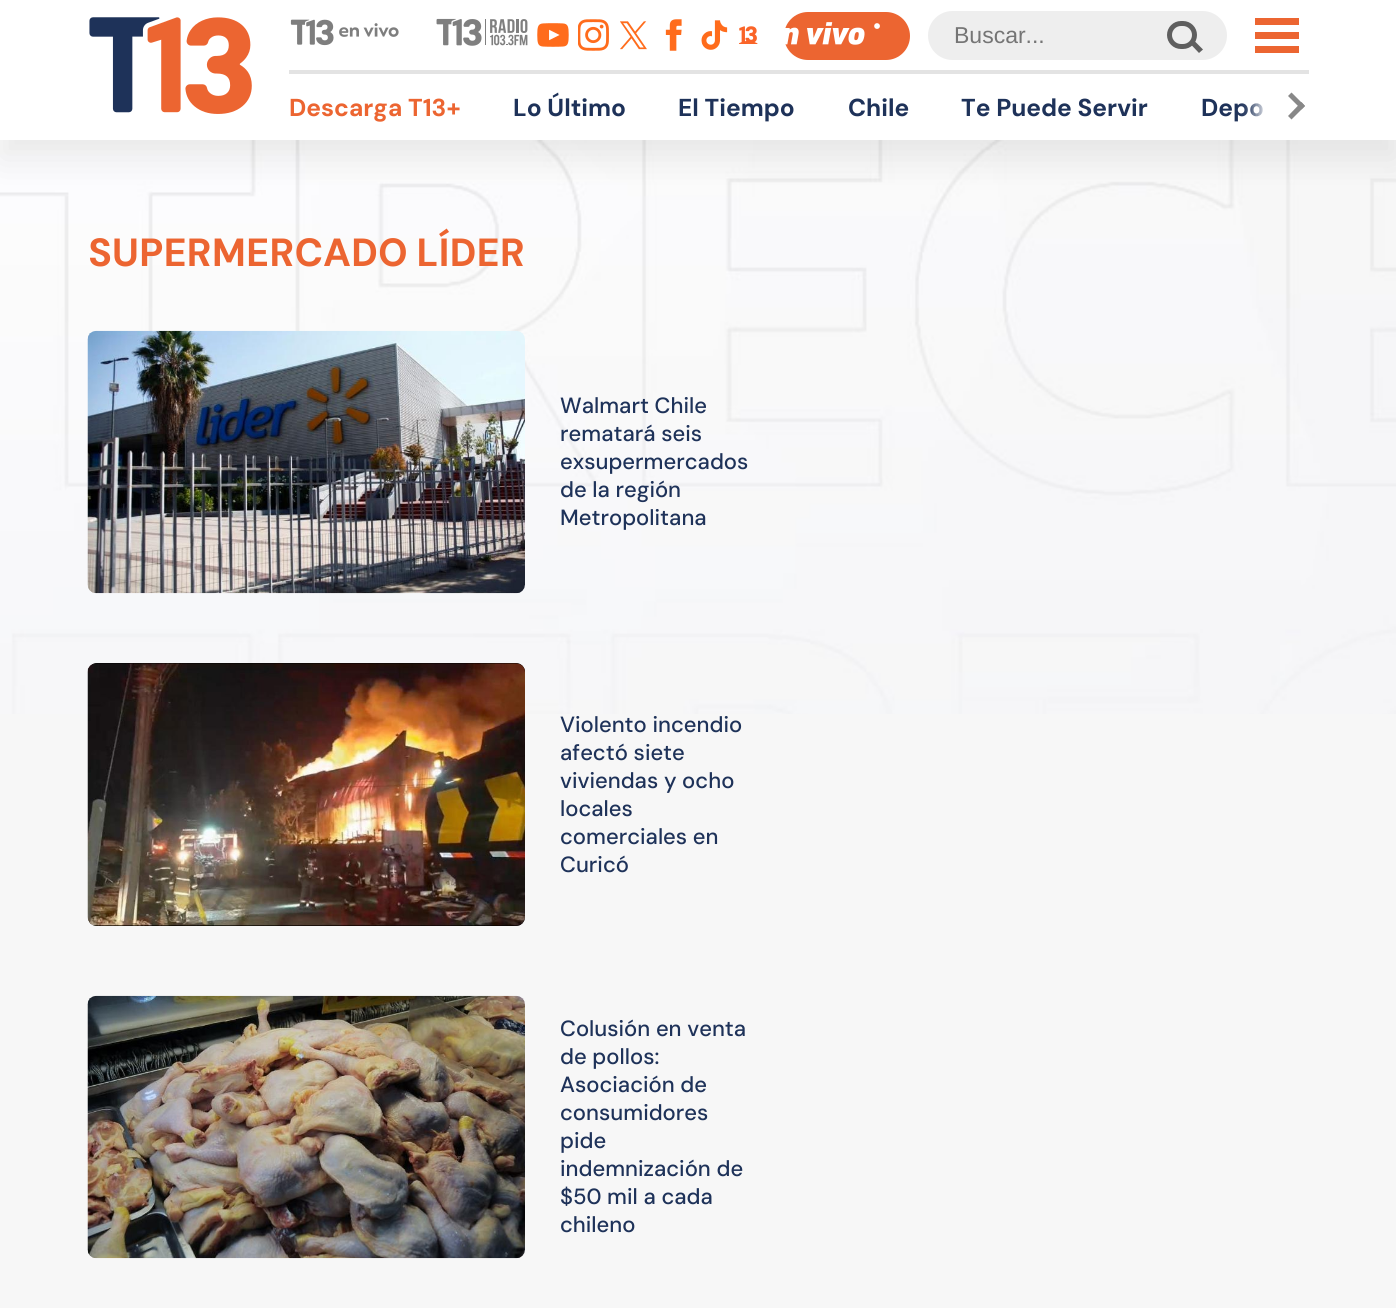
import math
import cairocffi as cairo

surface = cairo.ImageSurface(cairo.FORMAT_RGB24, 1396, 1308)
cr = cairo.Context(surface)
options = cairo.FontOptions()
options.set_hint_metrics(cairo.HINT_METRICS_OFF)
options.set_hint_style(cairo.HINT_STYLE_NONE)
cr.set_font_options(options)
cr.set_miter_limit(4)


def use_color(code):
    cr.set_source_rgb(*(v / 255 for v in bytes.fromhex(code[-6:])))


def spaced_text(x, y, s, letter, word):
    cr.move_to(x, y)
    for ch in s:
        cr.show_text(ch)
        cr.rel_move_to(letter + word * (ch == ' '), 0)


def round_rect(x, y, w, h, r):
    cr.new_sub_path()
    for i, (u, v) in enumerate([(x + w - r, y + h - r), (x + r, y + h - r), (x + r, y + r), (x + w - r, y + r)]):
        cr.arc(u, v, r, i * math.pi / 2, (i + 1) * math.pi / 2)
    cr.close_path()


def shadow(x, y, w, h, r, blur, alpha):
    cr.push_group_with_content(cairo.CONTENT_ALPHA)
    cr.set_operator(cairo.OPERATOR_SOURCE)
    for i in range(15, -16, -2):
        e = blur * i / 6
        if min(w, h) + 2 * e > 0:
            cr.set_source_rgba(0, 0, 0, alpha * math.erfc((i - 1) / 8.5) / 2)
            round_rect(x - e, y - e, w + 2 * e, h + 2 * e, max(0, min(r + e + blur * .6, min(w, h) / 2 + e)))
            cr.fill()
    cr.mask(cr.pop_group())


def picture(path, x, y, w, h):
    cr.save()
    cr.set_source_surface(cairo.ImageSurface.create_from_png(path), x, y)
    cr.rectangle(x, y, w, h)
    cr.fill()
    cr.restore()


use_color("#f7f7f7")
cr.paint()
picture("img11.png", 0, 140, 1396, 574)
use_color("#000000")
shadow(0, 19, 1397, 140, 0, 17.5, 0.08)
use_color("#ffffff")
cr.rectangle(0, 0, 1396, 140)
cr.fill()
picture("img1.png", 89, 17, 163, 97)
picture("img2.png", 290, 19, 109, 27)
picture("img3.png", 436, 18, 92, 28)
picture("img4.png", 537, 23, 32, 24)
picture("img5.png", 578, 19, 31, 32)
picture("img6.png", 620, 21, 27, 29)
picture("img7.png", 665, 19, 17, 32)
picture("img8.png", 701, 20, 27, 30)
picture("img9.png", 739, 26, 19, 18)
use_color("#ec6531")
round_rect(784, 12, 126, 48, 24)
cr.fill()
picture("img10.png", 784, 22, 96, 23)
use_color("#eeeeee")
round_rect(928, 11, 299, 49, 24.5)
cr.fill()
cr.select_font_face("Liberation Sans")
cr.set_font_size(23)
use_color("#757575")
cr.move_to(954, 43)
cr.show_text("Buscar...")
round_rect(1169.5, 23.5, 25, 23, 11.5)
use_color("#5f5f5f")
cr.set_line_width(5)
cr.stroke()
cr.new_path()
cr.move_to(1189.5, 43)
cr.line_to(1193, 39.5)
cr.line_to(1203, 49.5)
cr.line_to(1199, 53)
cr.close_path()
cr.fill()
use_color("#ec6531")
cr.rectangle(1255, 18, 44, 7)
cr.fill()
cr.rectangle(1255, 32, 44, 7)
cr.fill()
cr.rectangle(1255, 46, 44, 7)
cr.fill()
use_color("#e3e3e3")
cr.rectangle(289, 70, 1020, 4)
cr.fill()
cr.select_font_face("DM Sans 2", cairo.FONT_SLANT_NORMAL, cairo.FONT_WEIGHT_BOLD)
cr.set_font_size(24.5)
use_color("#ec6531")
cr.move_to(289, 116)
cr.show_text("Descarga T13+")
use_color("#1e3259")
cr.move_to(513, 116)
cr.show_text("Lo Último")
cr.move_to(678, 116)
cr.show_text("El Tiempo")
cr.move_to(848, 116)
cr.show_text("Chile")
cr.move_to(961, 116)
cr.show_text("Te Puede Servir")
cr.move_to(1201, 116)
cr.show_text("Depo")
cr.save()
cr.rectangle(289, 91, 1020, 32)
cr.clip()
use_color("#ffffff")
shadow(1257, 72, 35, 68, 0, 9, 1)
cr.restore()
use_color("#888888")
cr.new_path()
cr.move_to(1291.5, 92.5)
cr.line_to(1305, 106)
cr.line_to(1301.5, 109.5)
cr.line_to(1288, 96)
cr.close_path()
cr.fill()
cr.new_path()
cr.move_to(1301.5, 102)
cr.line_to(1305, 106)
cr.line_to(1291.5, 119.5)
cr.line_to(1288, 116)
cr.close_path()
cr.fill()
cr.select_font_face("DM Sans", cairo.FONT_SLANT_NORMAL, cairo.FONT_WEIGHT_BOLD)
cr.set_font_size(39.25)
use_color("#ec6531")
spaced_text(88, 266, "SUPERMERCADO LÍDER", 0, -1)
picture("img12.png", 87, 330, 438, 264)
cr.select_font_face("DM Sans Medium")
cr.set_font_size(22)
use_color("#1e3259")
cr.move_to(560, 413)
cr.show_text("Walmart Chile")
cr.move_to(560, 441)
cr.show_text("rematará seis")
cr.move_to(560, 469)
cr.show_text("exsupermercados")
cr.move_to(560, 497)
cr.show_text("de la región")
cr.move_to(560, 525)
cr.show_text("Metropolitana")
use_color("#000000")
round_rect(88, 663, 437, 263, 9)
cr.fill()
picture("img13.png", 87, 663, 438, 263)
use_color("#1e3259")
cr.move_to(560, 732)
cr.show_text("Violento incendio")
cr.move_to(560, 760)
cr.show_text("afectó siete")
cr.move_to(560, 788)
cr.show_text("viviendas y ocho")
cr.move_to(560, 816)
cr.show_text("locales")
cr.move_to(560, 844)
cr.show_text("comerciales en")
cr.move_to(560, 872)
cr.show_text("Curicó")
picture("img14.png", 87, 995, 438, 264)
cr.move_to(560, 1036)
cr.show_text("Colusión en venta")
cr.move_to(560, 1064)
cr.show_text("de pollos:")
cr.move_to(560, 1092)
cr.show_text("Asociación de")
cr.move_to(560, 1120)
cr.show_text("consumidores")
cr.move_to(560, 1148)
cr.show_text("pide")
cr.move_to(560, 1176)
cr.show_text("indemnización de")
cr.move_to(560, 1204)
cr.show_text("$50 mil a cada")
cr.move_to(560, 1232)
cr.show_text("chileno")
surface.write_to_png("result.png")
